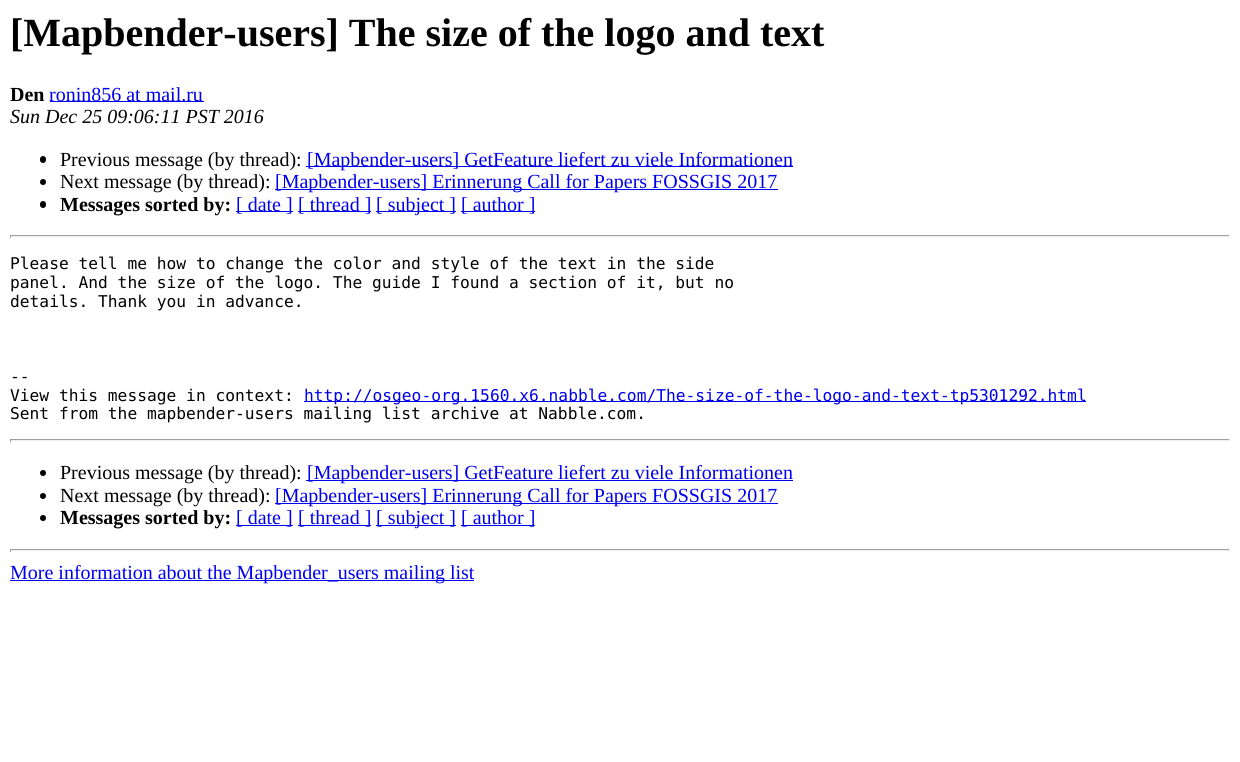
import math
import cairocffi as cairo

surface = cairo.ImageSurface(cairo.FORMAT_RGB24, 1240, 762)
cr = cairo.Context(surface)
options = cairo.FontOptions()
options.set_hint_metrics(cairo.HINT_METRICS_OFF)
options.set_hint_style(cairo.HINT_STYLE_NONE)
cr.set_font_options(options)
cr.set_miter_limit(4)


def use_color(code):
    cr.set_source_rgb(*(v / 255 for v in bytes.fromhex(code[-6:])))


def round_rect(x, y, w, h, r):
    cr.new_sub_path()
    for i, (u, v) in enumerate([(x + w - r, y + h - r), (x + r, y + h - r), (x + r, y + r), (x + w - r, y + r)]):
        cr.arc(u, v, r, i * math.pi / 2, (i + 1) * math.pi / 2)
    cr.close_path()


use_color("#ffffff")
cr.paint()
cr.select_font_face("Liberation Serif", cairo.FONT_SLANT_NORMAL, cairo.FONT_WEIGHT_BOLD)
cr.set_font_size(40)
use_color("#000000")
cr.move_to(10, 46)
cr.show_text("[Mapbender-users] The size of the logo and text")
cr.set_font_size(20)
cr.move_to(10, 101)
cr.show_text("Den")
use_color("#0000ee")
cr.rectangle(50, 101, 154, 1)
cr.fill()
cr.select_font_face("Liberation Serif")
cr.move_to(49, 101)
cr.show_text("ronin856 at mail.ru")
cr.select_font_face("Liberation Serif", cairo.FONT_SLANT_ITALIC)
use_color("#000000")
cr.move_to(10, 123)
cr.show_text("Sun Dec 25 09:06:11 PST 2016")
round_rect(40, 156, 6, 7, 3)
cr.fill()
cr.select_font_face("Liberation Serif")
cr.move_to(60, 166)
cr.show_text("Previous message (by thread):")
use_color("#0000ee")
cr.rectangle(306, 166, 487, 1)
cr.fill()
cr.move_to(307, 166)
cr.show_text("[Mapbender-users] GetFeature liefert zu viele Informationen")
use_color("#000000")
cr.new_path()
cr.arc(43, 182, 3, 0, 2 * math.pi)
cr.fill()
cr.move_to(60, 188)
cr.show_text("Next message (by thread):")
use_color("#0000ee")
cr.rectangle(275, 189, 503, 1)
cr.fill()
cr.move_to(275, 188)
cr.show_text("[Mapbender-users] Erinnerung Call for Papers FOSSGIS 2017")
use_color("#000000")
round_rect(40, 201, 6, 7, 3)
cr.fill()
cr.select_font_face("Liberation Serif", cairo.FONT_SLANT_NORMAL, cairo.FONT_WEIGHT_BOLD)
cr.move_to(60, 211)
cr.show_text("Messages sorted by:")
use_color("#0000ee")
cr.rectangle(236, 211, 57, 1)
cr.fill()
cr.select_font_face("Liberation Serif")
cr.move_to(236, 211)
cr.show_text("[ date ]")
cr.rectangle(298, 211, 73, 1)
cr.fill()
cr.move_to(298, 211)
cr.show_text("[ thread ]")
cr.rectangle(376, 211, 80, 1)
cr.fill()
cr.move_to(376, 211)
cr.show_text("[ subject ]")
cr.rectangle(461, 211, 74, 1)
cr.fill()
cr.move_to(461, 211)
cr.show_text("[ author ]")
use_color("#9f9f9f")
cr.rectangle(10, 235, 1220, 1)
cr.fill()
use_color("#eeeeee")
cr.rectangle(1229, 235, 1, 3)
cr.fill()
cr.rectangle(10, 236, 1220, 1)
cr.fill()
use_color("#9f9f9f")
cr.rectangle(10, 235, 1, 3)
cr.fill()
cr.select_font_face("DejaVu Sans Mono")
cr.set_font_size(16.25)
use_color("#000000")
cr.move_to(10, 269)
cr.show_text("Please tell me how to change the color and style of the text in the side")
cr.move_to(10, 288)
cr.show_text("panel. And the size of the logo. The guide I found a section of it, but no")
cr.move_to(10, 307)
cr.show_text("details. Thank you in advance.")
cr.move_to(10, 382)
cr.show_text("--")
cr.move_to(10, 401)
cr.show_text("View this message in context:")
use_color("#0000ee")
cr.rectangle(304, 401, 782, 1)
cr.fill()
cr.move_to(304, 401)
cr.show_text("http://osgeo-org.1560.x6.nabble.com/The-size-of-the-logo-and-text-tp5301292.html")
use_color("#000000")
cr.move_to(10, 419)
cr.show_text("Sent from the mapbender-users mailing list archive at Nabble.com.")
use_color("#9f9f9f")
cr.rectangle(10, 439, 1220, 1)
cr.fill()
use_color("#eeeeee")
cr.rectangle(1229, 439, 1, 3)
cr.fill()
cr.rectangle(10, 440, 1220, 1)
cr.fill()
use_color("#9f9f9f")
cr.rectangle(10, 439, 1, 3)
cr.fill()
use_color("#000000")
cr.arc(43, 473, 3, 0, 2 * math.pi)
cr.fill()
cr.select_font_face("Liberation Serif")
cr.set_font_size(20)
cr.move_to(60, 479)
cr.show_text("Previous message (by thread):")
use_color("#0000ee")
cr.rectangle(306, 480, 487, 1)
cr.fill()
cr.move_to(307, 479)
cr.show_text("[Mapbender-users] GetFeature liefert zu viele Informationen")
use_color("#000000")
cr.new_path()
cr.arc(43, 496, 3, 0, 2 * math.pi)
cr.fill()
cr.move_to(60, 502)
cr.show_text("Next message (by thread):")
use_color("#0000ee")
cr.rectangle(275, 503, 503, 1)
cr.fill()
cr.move_to(275, 502)
cr.show_text("[Mapbender-users] Erinnerung Call for Papers FOSSGIS 2017")
use_color("#000000")
cr.new_path()
cr.arc(43, 518, 3, 0, 2 * math.pi)
cr.fill()
cr.select_font_face("Liberation Serif", cairo.FONT_SLANT_NORMAL, cairo.FONT_WEIGHT_BOLD)
cr.move_to(60, 524)
cr.show_text("Messages sorted by:")
use_color("#0000ee")
cr.rectangle(236, 525, 57, 1)
cr.fill()
cr.select_font_face("Liberation Serif")
cr.move_to(236, 524)
cr.show_text("[ date ]")
cr.rectangle(298, 525, 73, 1)
cr.fill()
cr.move_to(298, 524)
cr.show_text("[ thread ]")
cr.rectangle(376, 525, 80, 1)
cr.fill()
cr.move_to(376, 524)
cr.show_text("[ subject ]")
cr.rectangle(461, 525, 74, 1)
cr.fill()
cr.move_to(461, 524)
cr.show_text("[ author ]")
use_color("#9f9f9f")
cr.rectangle(10, 549, 1220, 1)
cr.fill()
use_color("#eeeeee")
cr.rectangle(1229, 549, 1, 3)
cr.fill()
cr.rectangle(10, 550, 1220, 1)
cr.fill()
use_color("#9f9f9f")
cr.rectangle(10, 549, 1, 3)
cr.fill()
use_color("#0000ee")
cr.rectangle(10, 580, 464, 1)
cr.fill()
cr.move_to(10, 579)
cr.show_text("More information about the Mapbender_users mailing list")
surface.write_to_png("result.png")
